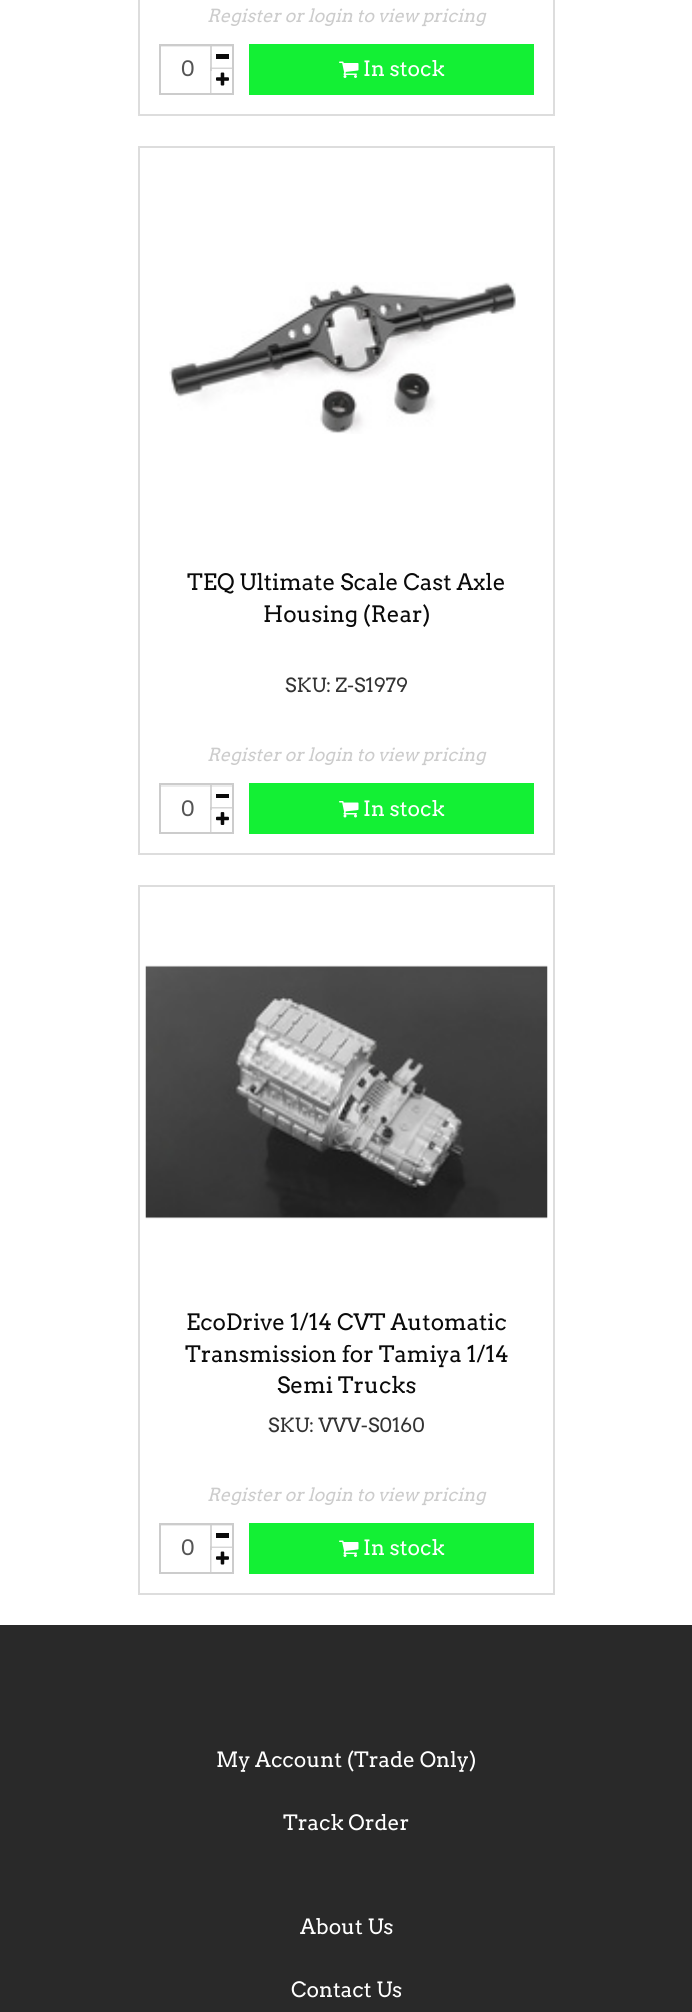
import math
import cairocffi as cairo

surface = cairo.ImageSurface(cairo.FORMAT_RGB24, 692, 2012)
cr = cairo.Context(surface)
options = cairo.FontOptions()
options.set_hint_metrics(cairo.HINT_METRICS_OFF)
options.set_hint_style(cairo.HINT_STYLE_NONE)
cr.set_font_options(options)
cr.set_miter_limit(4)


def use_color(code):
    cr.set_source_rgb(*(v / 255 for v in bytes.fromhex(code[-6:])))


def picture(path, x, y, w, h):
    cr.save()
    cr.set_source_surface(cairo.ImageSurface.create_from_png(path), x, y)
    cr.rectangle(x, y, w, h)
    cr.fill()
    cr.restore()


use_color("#ffffff")
cr.paint()
use_color("#d6d6d6")
cr.rectangle(210, 785, 2, 25)
cr.fill()
cr.rectangle(139, -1, 415, 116)
use_color("#dddddd")
cr.stroke()
cr.select_font_face("Arvo", cairo.FONT_SLANT_ITALIC)
cr.set_font_size(18)
use_color("#cccccc")
cr.move_to(207, 22)
cr.show_text("Register or login to view pricing")
use_color("#ececec")
cr.rectangle(161, 46, 72, 1)
cr.fill()
cr.rectangle(160, 45, 73, 49)
use_color("#cccccc")
cr.stroke()
cr.select_font_face("Arvo")
cr.set_font_size(21)
use_color("#555555")
cr.move_to(181, 76)
cr.show_text("0")
cr.set_source_rgba(0.8, 0.8, 0.8, 0.8)
cr.rectangle(210, 45, 2, 26)
cr.fill()
use_color("#0a0a0a")
cr.rectangle(216, 54, 13, 5)
cr.fill()
cr.set_source_rgba(0.8, 0.8, 0.8, 0.8)
cr.new_path()
cr.move_to(210, 67.5)
cr.line_to(232.5, 67.5)
cr.line_to(232.5, 69)
cr.line_to(211.5, 69)
cr.close_path()
cr.fill()
cr.new_path()
cr.move_to(210, 93)
cr.line_to(210, 67.5)
cr.line_to(211.5, 69)
cr.line_to(211.5, 93)
cr.close_path()
cr.fill()
picture("img1.png", 216, 72, 13, 14)
use_color("#13f034")
cr.rectangle(249, 44, 285, 51)
cr.fill()
picture("img2.png", 339, 61, 20, 17)
use_color("#ffffff")
cr.move_to(363, 76)
cr.show_text("In stock")
cr.rectangle(139, 147, 415, 707)
use_color("#dddddd")
cr.stroke()
picture("img3.png", 169, 282, 347, 152)
cr.set_font_size(22.5)
use_color("#0a0a0a")
cr.move_to(187, 590)
cr.show_text("TEQ Ultimate Scale Cast Axle")
cr.move_to(263, 622)
cr.show_text("Housing (Rear)")
cr.set_font_size(19.5)
use_color("#333333")
cr.move_to(285, 692)
cr.show_text("SKU: Z-S1979")
cr.select_font_face("Arvo", cairo.FONT_SLANT_ITALIC)
cr.set_font_size(18)
use_color("#cccccc")
cr.move_to(207, 761)
cr.show_text("Register or login to view pricing")
use_color("#ececec")
cr.rectangle(161, 785, 72, 2)
cr.fill()
use_color("#d2d2d2")
cr.rectangle(210, 785, 2, 2)
cr.fill()
cr.rectangle(160, 784, 73, 49)
use_color("#cccccc")
cr.stroke()
use_color("#0a0a0a")
cr.rectangle(216, 794, 13, 4)
cr.fill()
cr.select_font_face("Arvo")
cr.set_font_size(21)
use_color("#555555")
cr.move_to(181, 816)
cr.show_text("0")
cr.set_source_rgba(0.8, 0.8, 0.8, 0.8)
cr.new_path()
cr.move_to(210, 807)
cr.line_to(232.5, 807)
cr.line_to(232.5, 808.5)
cr.line_to(211.5, 808.5)
cr.close_path()
cr.fill()
cr.new_path()
cr.move_to(210, 832.5)
cr.line_to(210, 807)
cr.line_to(211.5, 808.5)
cr.line_to(211.5, 832.5)
cr.close_path()
cr.fill()
picture("img4.png", 216, 812, 13, 13)
use_color("#13f034")
cr.rectangle(249, 783, 285, 51)
cr.fill()
picture("img5.png", 339, 801, 20, 17)
use_color("#ffffff")
cr.move_to(363, 816)
cr.show_text("In stock")
cr.rectangle(139, 886, 415, 708)
use_color("#dddddd")
cr.stroke()
picture("img6.png", 145, 965, 403, 254)
cr.set_font_size(22.5)
use_color("#0a0a0a")
cr.move_to(186, 1330)
cr.show_text("EcoDrive 1/14 CVT Automatic")
cr.move_to(185, 1362)
cr.show_text("Transmission for Tamiya 1/14")
cr.move_to(277, 1393)
cr.show_text("Semi Trucks")
cr.set_font_size(19.5)
use_color("#333333")
cr.move_to(268, 1432)
cr.show_text("SKU: VVV-S0160")
cr.select_font_face("Arvo", cairo.FONT_SLANT_ITALIC)
cr.set_font_size(18)
use_color("#cccccc")
cr.move_to(207, 1501)
cr.show_text("Register or login to view pricing")
use_color("#ececec")
cr.rectangle(161, 1525, 72, 1)
cr.fill()
cr.rectangle(160, 1524, 73, 49)
use_color("#cccccc")
cr.stroke()
cr.select_font_face("Arvo")
cr.set_font_size(21)
use_color("#555555")
cr.move_to(181, 1555)
cr.show_text("0")
cr.set_source_rgba(0.8, 0.8, 0.8, 0.8)
cr.rectangle(210, 1524, 2, 26)
cr.fill()
use_color("#0a0a0a")
cr.rectangle(216, 1533, 13, 5)
cr.fill()
cr.set_source_rgba(0.8, 0.8, 0.8, 0.8)
cr.new_path()
cr.move_to(210, 1546.5)
cr.line_to(232.5, 1546.5)
cr.line_to(232.5, 1548)
cr.line_to(211.5, 1548)
cr.close_path()
cr.fill()
cr.new_path()
cr.move_to(210, 1572)
cr.line_to(210, 1546.5)
cr.line_to(211.5, 1548)
cr.line_to(211.5, 1572)
cr.close_path()
cr.fill()
picture("img1.png", 216, 1551, 13, 14)
use_color("#13f034")
cr.rectangle(249, 1523, 285, 51)
cr.fill()
picture("img2.png", 339, 1540, 20, 17)
use_color("#ffffff")
cr.move_to(363, 1555)
cr.show_text("In stock")
use_color("#292929")
cr.rectangle(0, 1625, 692, 387)
cr.fill()
use_color("#ffffff")
cr.move_to(216, 1767)
cr.show_text("My Account (Trade Only)")
cr.move_to(283, 1830)
cr.show_text("Track Order")
cr.move_to(300, 1934)
cr.show_text("About Us")
cr.move_to(291, 1997)
cr.show_text("Contact Us")
surface.write_to_png("result.png")
